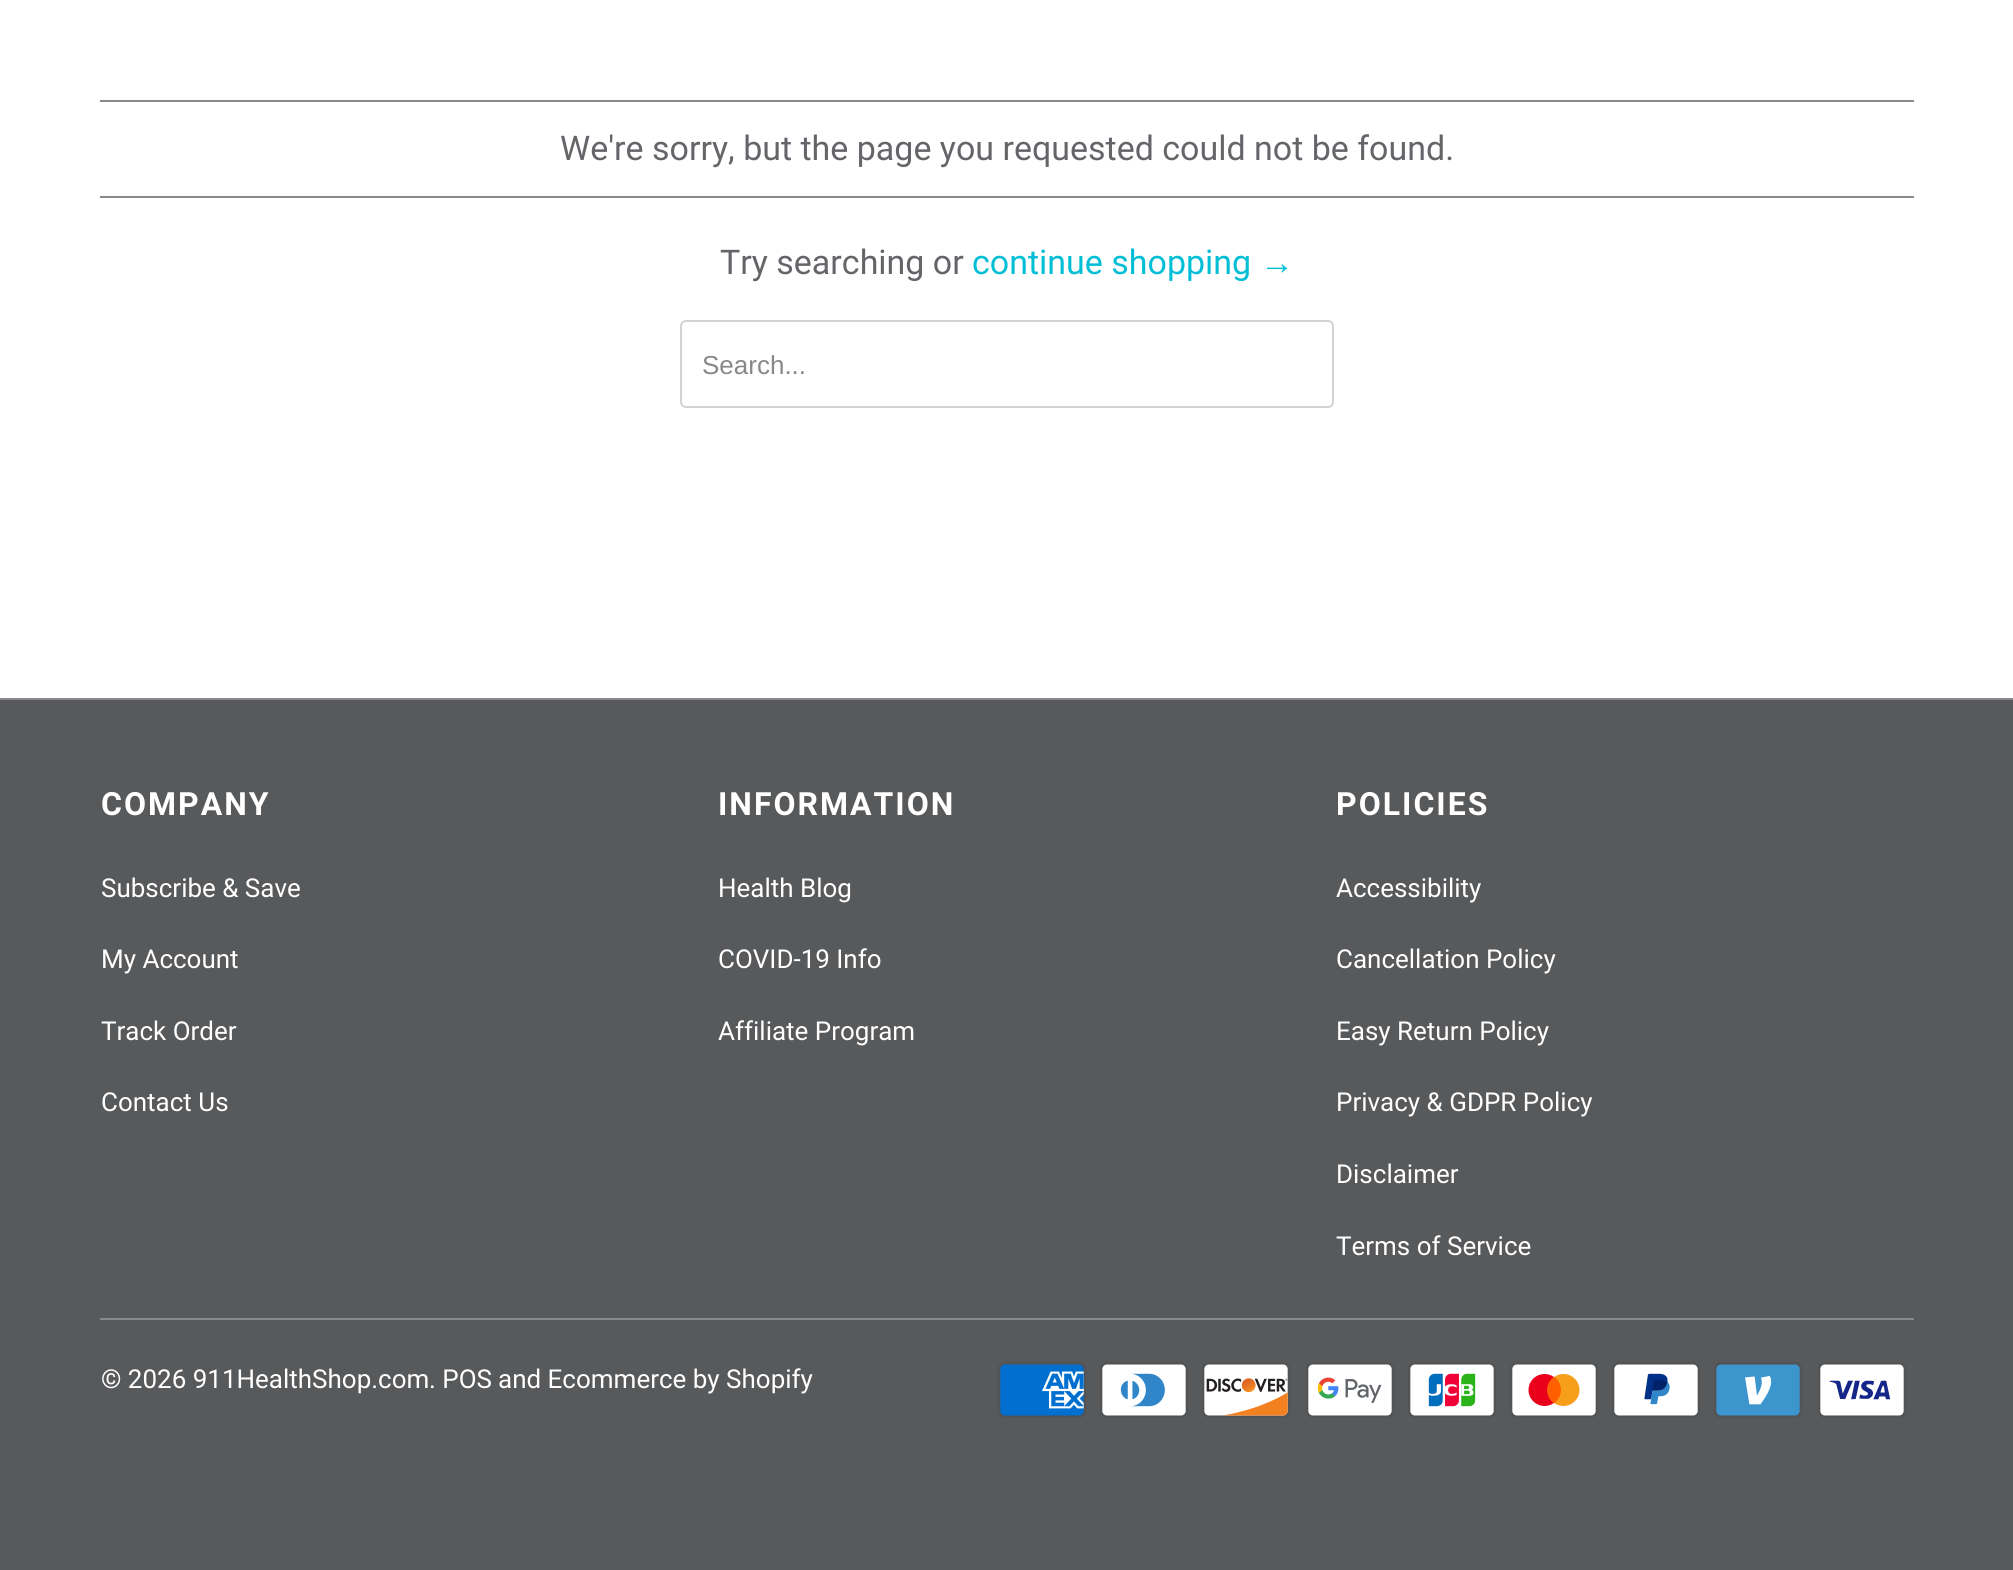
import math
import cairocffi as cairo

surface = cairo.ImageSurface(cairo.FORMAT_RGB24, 2013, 1570)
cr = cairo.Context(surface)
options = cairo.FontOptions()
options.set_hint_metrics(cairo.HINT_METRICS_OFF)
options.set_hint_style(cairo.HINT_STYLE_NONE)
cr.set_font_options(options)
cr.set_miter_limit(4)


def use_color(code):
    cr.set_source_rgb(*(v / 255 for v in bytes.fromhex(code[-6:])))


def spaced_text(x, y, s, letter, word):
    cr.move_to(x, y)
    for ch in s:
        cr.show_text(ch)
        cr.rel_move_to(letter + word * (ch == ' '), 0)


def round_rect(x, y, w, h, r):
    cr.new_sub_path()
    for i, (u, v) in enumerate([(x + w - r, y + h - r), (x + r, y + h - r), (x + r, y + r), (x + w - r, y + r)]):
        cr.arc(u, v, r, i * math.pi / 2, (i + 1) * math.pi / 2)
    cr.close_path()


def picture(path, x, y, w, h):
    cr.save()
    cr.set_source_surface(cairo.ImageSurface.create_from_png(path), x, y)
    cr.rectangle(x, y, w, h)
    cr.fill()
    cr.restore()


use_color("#ffffff")
cr.paint()
use_color("#898a8d")
cr.rectangle(100, 100, 1814, 2)
cr.fill()
cr.rectangle(100, 196, 1814, 2)
cr.fill()
cr.select_font_face("Roboto")
cr.set_font_size(34)
use_color("#636569")
cr.move_to(560, 160)
cr.show_text("We're sorry, but the page you requested could not be found.")
cr.move_to(720, 274)
cr.show_text("Try searching or")
use_color("#00bed6")
cr.move_to(972, 274)
cr.show_text("continue shopping")
cr.select_font_face("Liberation Sans")
cr.move_to(1260, 274)
cr.show_text("→")
round_rect(681, 321, 652, 86, 5)
use_color("#d1d3d4")
cr.stroke()
cr.set_font_size(26)
use_color("#888888")
cr.move_to(702, 374)
cr.show_text("Search...")
use_color("#58595b")
cr.rectangle(0, 700, 2013, 870)
cr.fill()
use_color("#898a8d")
cr.rectangle(0, 698, 2013, 2)
cr.fill()
cr.select_font_face("Roboto", cairo.FONT_SLANT_NORMAL, cairo.FONT_WEIGHT_BOLD)
cr.set_font_size(32)
use_color("#ffffff")
spaced_text(101, 815, "COMPANY", 2, 0)
cr.select_font_face("Roboto")
cr.set_font_size(26)
cr.move_to(101, 897)
cr.show_text("Subscribe & Save")
cr.move_to(101, 968)
cr.show_text("My Account")
cr.move_to(101, 1040)
cr.show_text("Track Order")
cr.move_to(101, 1111)
cr.show_text("Contact Us")
cr.select_font_face("Roboto", cairo.FONT_SLANT_NORMAL, cairo.FONT_WEIGHT_BOLD)
cr.set_font_size(32)
spaced_text(718, 815, "INFORMATION", 2, 0)
cr.select_font_face("Roboto")
cr.set_font_size(26)
cr.move_to(718, 897)
cr.show_text("Health Blog")
cr.move_to(718, 968)
cr.show_text("COVID-19 Info")
cr.move_to(718, 1040)
cr.show_text("Affiliate Program")
cr.select_font_face("Roboto", cairo.FONT_SLANT_NORMAL, cairo.FONT_WEIGHT_BOLD)
cr.set_font_size(32)
spaced_text(1336, 815, "POLICIES", 2, 0)
cr.select_font_face("Roboto")
cr.set_font_size(26)
cr.move_to(1336, 897)
cr.show_text("Accessibility")
cr.move_to(1336, 968)
cr.show_text("Cancellation Policy")
cr.move_to(1336, 1040)
cr.show_text("Easy Return Policy")
cr.move_to(1336, 1111)
cr.show_text("Privacy & GDPR Policy")
cr.move_to(1336, 1183)
cr.show_text("Disclaimer")
cr.move_to(1336, 1255)
cr.show_text("Terms of Service")
use_color("#898a8d")
cr.rectangle(100, 1318, 1814, 2)
cr.fill()
use_color("#ffffff")
cr.move_to(101, 1388)
cr.show_text("© 2026 911HealthShop.com")
cr.move_to(429, 1388)
cr.show_text(". POS")
cr.move_to(498, 1388)
cr.show_text("and Ecommerce by Shopify")
picture("img1.png", 998, 1362, 88, 56)
picture("img2.png", 1100, 1362, 88, 56)
picture("img3.png", 1202, 1362, 88, 56)
picture("img4.png", 1306, 1362, 88, 56)
picture("img5.png", 1408, 1362, 88, 56)
picture("img6.png", 1510, 1362, 88, 56)
picture("img7.png", 1612, 1362, 88, 56)
picture("img8.png", 1714, 1362, 88, 56)
picture("img9.png", 1818, 1362, 88, 56)
surface.write_to_png("result.png")
